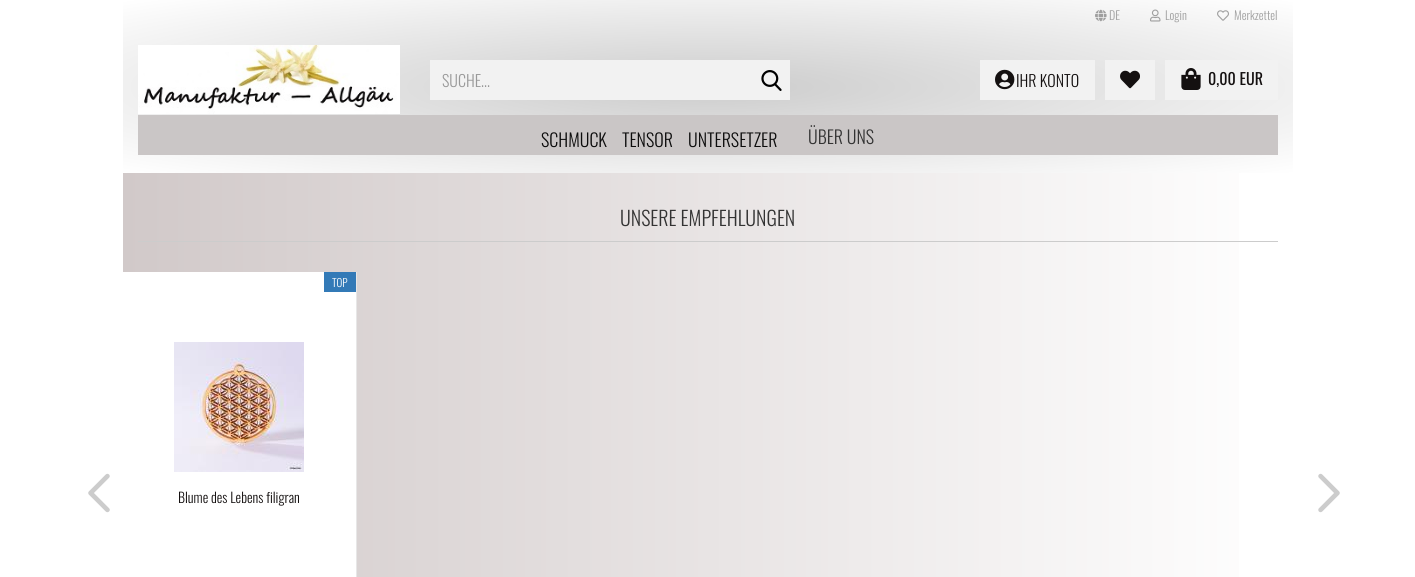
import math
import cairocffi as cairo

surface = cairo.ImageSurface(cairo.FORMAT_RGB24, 1415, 577)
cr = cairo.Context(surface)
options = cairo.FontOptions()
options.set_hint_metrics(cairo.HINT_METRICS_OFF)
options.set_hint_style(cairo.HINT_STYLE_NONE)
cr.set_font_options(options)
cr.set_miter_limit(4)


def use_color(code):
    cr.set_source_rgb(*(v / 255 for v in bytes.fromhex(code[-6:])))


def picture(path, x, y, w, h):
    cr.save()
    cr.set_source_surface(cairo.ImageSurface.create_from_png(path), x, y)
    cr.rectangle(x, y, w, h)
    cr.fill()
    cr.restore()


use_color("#ffffff")
cr.paint()
gradient = cairo.LinearGradient(123, 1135, 1293, 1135)
gradient.add_color_stop_rgba(0, 0.82, 0.788, 0.788, 1)
gradient.add_color_stop_rgba(1, 1, 1, 1, 1)
cr.set_source(gradient)
cr.rectangle(123, 173, 1116, 404)
cr.fill()
gradient = cairo.RadialGradient(0, 0, 0, 0, 0, 1)
gradient.set_matrix(cairo.Matrix(1 / 827, 0, 0, 1 / 122, -1 * 708 / 827, -1 * 87 / 122))
gradient.add_color_stop_rgba(0, 0.8, 0.8, 0.8, 1)
gradient.add_color_stop_rgba(1, 1, 1, 1, 1)
cr.set_source(gradient)
cr.rectangle(123, 0, 1170, 173)
cr.fill()
picture("img1.png", 1095, 9, 12, 13)
cr.select_font_face("Oswald Light")
cr.set_font_size(12)
use_color("#9f9f9f")
cr.move_to(1109, 20)
cr.show_text("DE")
picture("img2.png", 1150, 9, 11, 13)
cr.move_to(1165, 20)
cr.show_text("Login")
picture("img3.png", 1217, 10, 12, 11)
cr.move_to(1234, 20)
cr.show_text("Merkzettel")
picture("img4.png", 138, 45, 262, 69)
use_color("#f2f2f2")
cr.rectangle(430, 60, 360, 40)
cr.fill()
cr.set_font_size(16)
use_color("#999999")
cr.move_to(442, 87)
cr.show_text("SUCHE...")
picture("img5.png", 761, 70, 21, 21)
use_color("#f2f2f2")
cr.rectangle(980, 60, 115, 40)
cr.fill()
picture("img6.png", 995, 69, 20, 21)
use_color("#141010")
cr.move_to(1016, 87)
cr.show_text("IHR KONTO")
use_color("#f2f2f2")
cr.rectangle(1105, 60, 50, 40)
cr.fill()
picture("img7.png", 1120, 70, 20, 19)
cr.rectangle(1165, 60, 113, 40)
cr.fill()
picture("img8.png", 1181, 68, 20, 22)
cr.select_font_face("Oswald")
use_color("#141010")
cr.move_to(1208, 85)
cr.show_text("0,00 EUR")
use_color("#cac6c6")
cr.rectangle(138, 115, 1140, 40)
cr.fill()
cr.select_font_face("Oswald Light")
cr.set_font_size(18)
use_color("#0c0c0c")
cr.move_to(541, 147)
cr.show_text("SCHMUCK")
cr.move_to(622, 147)
cr.show_text("TENSOR")
cr.move_to(688, 147)
cr.show_text("UNTERSETZER")
use_color("#333333")
cr.move_to(808, 144)
cr.show_text("ÜBER UNS")
use_color("#cccccc")
cr.rectangle(138, 241, 1140, 1)
cr.fill()
cr.set_font_size(20)
use_color("#333333")
cr.move_to(620, 226)
cr.show_text("UNSERE EMPFEHLUNGEN")
picture("img9.png", 88, 473, 22, 40)
use_color("#ffffff")
cr.rectangle(123, 272, 233, 305)
cr.fill()
use_color("#e7e7e7")
cr.rectangle(356, 272, 1, 305)
cr.fill()
use_color("#337ab7")
cr.rectangle(324, 272, 32, 20)
cr.fill()
cr.set_font_size(11)
use_color("#ffffff")
cr.move_to(332, 287)
cr.show_text("TOP")
picture("img10.png", 174, 342, 130, 130)
cr.set_font_size(14)
use_color("#141010")
cr.move_to(178, 503)
cr.show_text("Blume des Lebens filigran")
picture("img11.png", 1318, 473, 22, 40)
surface.write_to_png("result.png")
